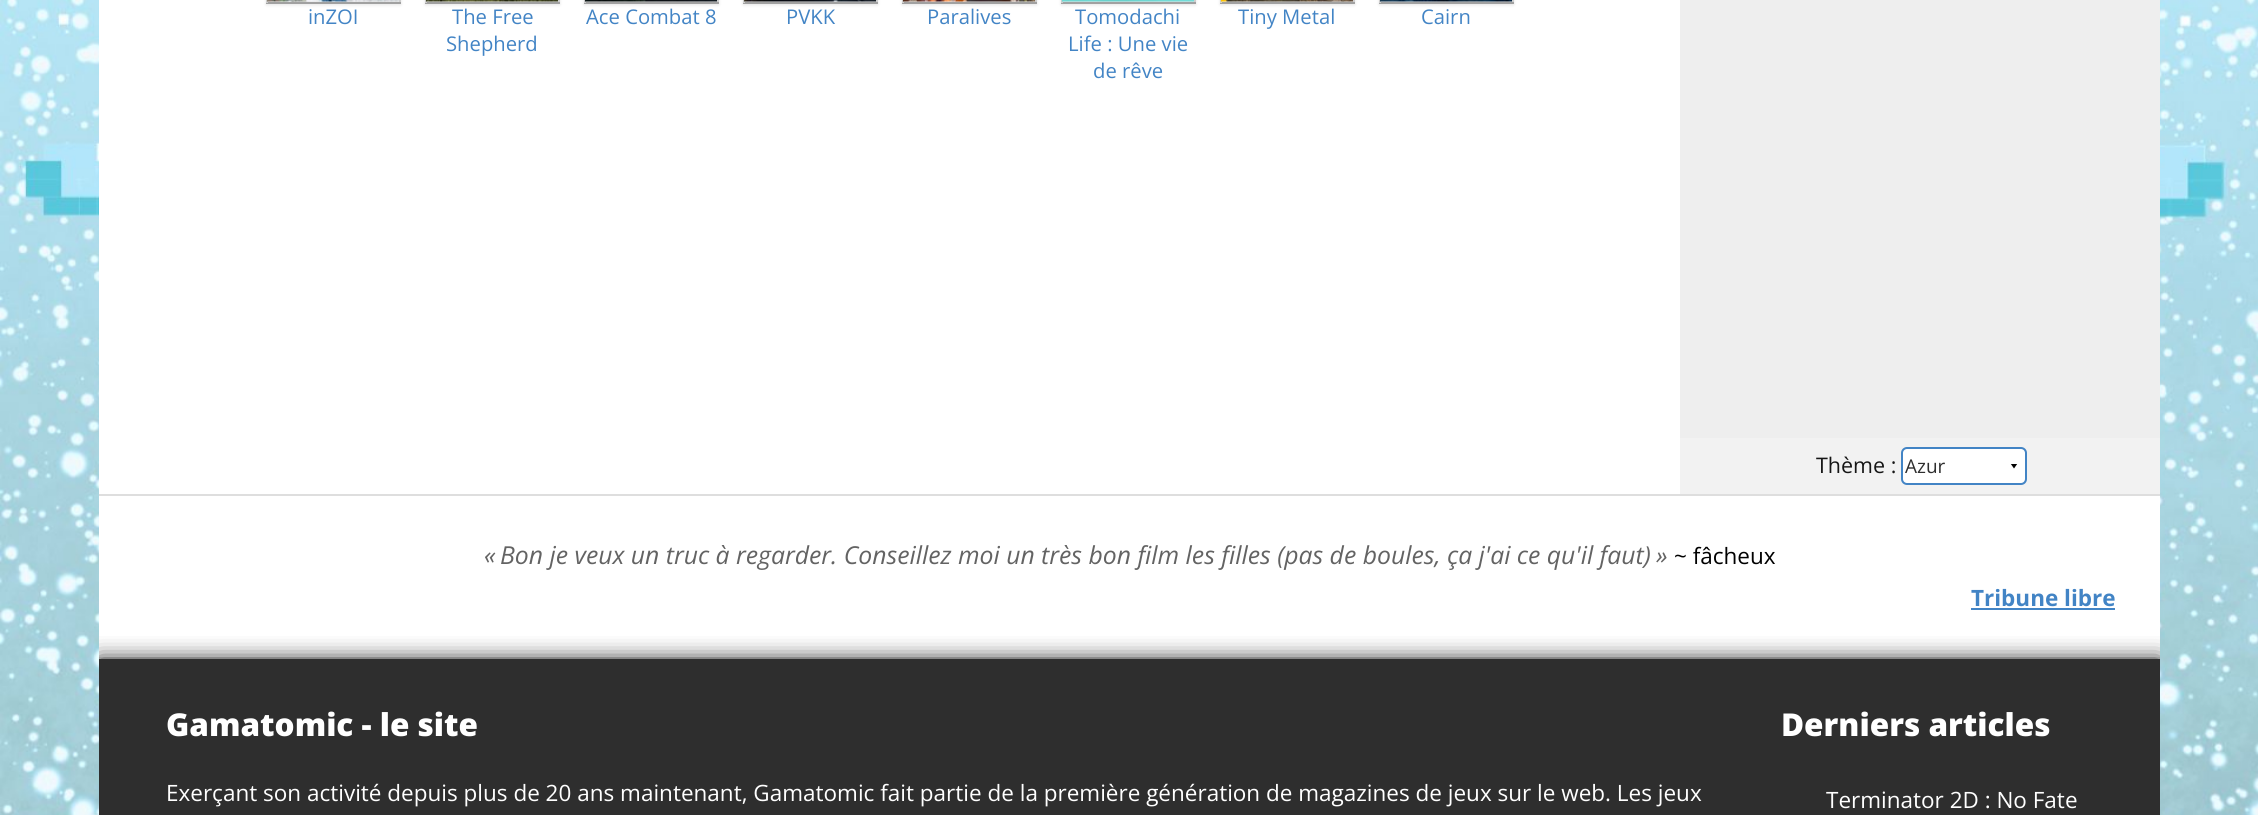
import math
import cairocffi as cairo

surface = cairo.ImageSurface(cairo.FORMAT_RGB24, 2258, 815)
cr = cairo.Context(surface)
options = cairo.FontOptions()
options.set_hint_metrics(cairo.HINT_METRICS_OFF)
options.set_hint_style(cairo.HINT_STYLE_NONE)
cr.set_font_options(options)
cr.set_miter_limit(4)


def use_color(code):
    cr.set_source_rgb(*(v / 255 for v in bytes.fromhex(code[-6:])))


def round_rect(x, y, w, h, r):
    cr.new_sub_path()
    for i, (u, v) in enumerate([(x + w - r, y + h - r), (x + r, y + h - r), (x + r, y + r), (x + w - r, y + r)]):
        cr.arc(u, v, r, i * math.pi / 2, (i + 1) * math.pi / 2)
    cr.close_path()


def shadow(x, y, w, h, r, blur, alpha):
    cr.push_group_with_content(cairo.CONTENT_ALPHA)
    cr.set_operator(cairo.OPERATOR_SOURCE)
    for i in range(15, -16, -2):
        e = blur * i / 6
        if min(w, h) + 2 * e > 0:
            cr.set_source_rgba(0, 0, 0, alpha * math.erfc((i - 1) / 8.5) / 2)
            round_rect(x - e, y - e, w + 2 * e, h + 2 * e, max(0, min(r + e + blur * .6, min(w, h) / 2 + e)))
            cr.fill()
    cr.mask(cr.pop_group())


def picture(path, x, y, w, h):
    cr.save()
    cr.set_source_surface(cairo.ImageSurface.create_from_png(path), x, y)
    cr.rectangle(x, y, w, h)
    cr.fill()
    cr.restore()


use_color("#ffffff")
cr.paint()
picture("img1.png", 0, 0, 2258, 815)
use_color("#ffffff")
cr.rectangle(99, 0, 1581, 494)
cr.fill()
use_color("#000000")
shadow(266, -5, 135, 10, 0, 1.5, 0.1)
use_color("#cecece")
cr.rectangle(399, 0, 2, 3)
cr.fill()
use_color("#a1a1a1")
cr.rectangle(266, 2, 135, 2)
cr.fill()
use_color("#cecece")
cr.rectangle(266, 0, 2, 3)
cr.fill()
picture("img2.png", 267, 0, 132, 2)
cr.select_font_face("Open Sans")
cr.set_font_size(20.25)
use_color("#4284c5")
cr.move_to(308, 24)
cr.show_text("inZOI")
use_color("#000000")
shadow(425, -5, 135, 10, 0, 1.5, 0.1)
use_color("#cecece")
cr.rectangle(558, 0, 2, 3)
cr.fill()
use_color("#a1a1a1")
cr.rectangle(425, 2, 135, 2)
cr.fill()
use_color("#cecece")
cr.rectangle(425, 0, 2, 3)
cr.fill()
picture("img3.png", 426, 0, 132, 2)
use_color("#4284c5")
cr.move_to(452, 24)
cr.show_text("The Free")
cr.move_to(446, 51)
cr.show_text("Shepherd")
use_color("#000000")
shadow(584, -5, 135, 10, 0, 1.5, 0.1)
use_color("#cecece")
cr.rectangle(717, 0, 2, 3)
cr.fill()
use_color("#a1a1a1")
cr.rectangle(584, 2, 135, 2)
cr.fill()
use_color("#cecece")
cr.rectangle(584, 0, 2, 3)
cr.fill()
picture("img4.png", 585, 0, 132, 2)
use_color("#4284c5")
cr.move_to(586, 24)
cr.show_text("Ace Combat 8")
use_color("#000000")
shadow(743, -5, 135, 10, 0, 1.5, 0.1)
use_color("#cecece")
cr.rectangle(876, 0, 2, 3)
cr.fill()
use_color("#a1a1a1")
cr.rectangle(743, 2, 135, 2)
cr.fill()
use_color("#cecece")
cr.rectangle(743, 0, 2, 3)
cr.fill()
picture("img5.png", 744, 0, 132, 2)
use_color("#4284c5")
cr.move_to(786, 24)
cr.show_text("PVKK")
use_color("#000000")
shadow(902, -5, 135, 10, 0, 1.5, 0.1)
use_color("#cecece")
cr.rectangle(1035, 0, 2, 3)
cr.fill()
use_color("#a1a1a1")
cr.rectangle(902, 2, 135, 2)
cr.fill()
use_color("#cecece")
cr.rectangle(902, 0, 2, 3)
cr.fill()
picture("img6.png", 903, 0, 132, 2)
use_color("#4284c5")
cr.move_to(927, 24)
cr.show_text("Paralives")
use_color("#000000")
shadow(1061, -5, 135, 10, 0, 1.5, 0.1)
use_color("#cecece")
cr.rectangle(1194, 0, 2, 3)
cr.fill()
use_color("#a1a1a1")
cr.rectangle(1061, 2, 135, 2)
cr.fill()
use_color("#cecece")
cr.rectangle(1061, 0, 2, 3)
cr.fill()
picture("img7.png", 1062, 0, 132, 2)
use_color("#4284c5")
cr.move_to(1075, 24)
cr.show_text("Tomodachi")
cr.move_to(1068, 51)
cr.show_text("Life : Une vie")
cr.move_to(1093, 78)
cr.show_text("de rêve")
use_color("#000000")
shadow(1220, -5, 135, 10, 0, 1.5, 0.1)
use_color("#cecece")
cr.rectangle(1353, 0, 2, 3)
cr.fill()
use_color("#a1a1a1")
cr.rectangle(1220, 2, 135, 2)
cr.fill()
use_color("#cecece")
cr.rectangle(1220, 0, 2, 3)
cr.fill()
picture("img8.png", 1221, 0, 132, 2)
use_color("#4284c5")
cr.move_to(1238, 24)
cr.show_text("Tiny Metal")
use_color("#000000")
shadow(1379, -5, 135, 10, 0, 1.5, 0.1)
use_color("#cecece")
cr.rectangle(1512, 0, 2, 3)
cr.fill()
use_color("#a1a1a1")
cr.rectangle(1379, 2, 135, 2)
cr.fill()
use_color("#cecece")
cr.rectangle(1379, 0, 2, 3)
cr.fill()
picture("img9.png", 1380, 0, 132, 2)
use_color("#4284c5")
cr.move_to(1421, 24)
cr.show_text("Cairn")
use_color("#eeeeee")
cr.rectangle(1680, 0, 480, 438)
cr.fill()
use_color("#f2f2f2")
cr.rectangle(1680, 438, 480, 56)
cr.fill()
cr.set_font_size(21.5)
use_color("#161616")
cr.move_to(1816, 473)
cr.show_text("Thème :")
use_color("#ffffff")
round_rect(1902, 449, 123, 34, 4)
cr.fill()
cr.save()
cr.rectangle(2006, 464, 19, 5)
cr.clip()
use_color("#000000")
cr.new_path()
cr.move_to(2010.5, 463.5)
cr.line_to(2017.5, 463.5)
cr.line_to(2014, 468.5)
cr.fill()
cr.restore()
round_rect(1902, 448, 124, 36, 5)
use_color("#4284c5")
cr.stroke()
cr.set_font_size(19)
use_color("#2e2e2e")
cr.move_to(1905, 473)
cr.show_text("Azur")
use_color("#ffffff")
cr.rectangle(99, 496, 2061, 161)
cr.fill()
use_color("#dedede")
cr.rectangle(99, 494, 2061, 2)
cr.fill()
cr.rectangle(99, 657, 2061, 2)
cr.fill()
cr.select_font_face("Open Sans", cairo.FONT_SLANT_ITALIC)
cr.set_font_size(24.75)
use_color("#636363")
cr.move_to(484, 564)
cr.show_text("«")
cr.move_to(500, 564)
cr.show_text("Bon je veux un truc à regarder. Conseillez moi un très bon film les filles (pas de boules, ça j'ai ce qu'il faut)")
cr.move_to(1656, 564)
cr.show_text("»")
cr.select_font_face("Open Sans")
cr.set_font_size(22.5)
use_color("#000000")
cr.move_to(1674, 564)
cr.show_text("~ fâcheux")
cr.select_font_face("Open Sans", cairo.FONT_SLANT_NORMAL, cairo.FONT_WEIGHT_BOLD)
use_color("#4284c5")
cr.move_to(1971, 606)
cr.show_text("Tribune libre")
cr.rectangle(1971, 608, 144, 2)
cr.fill()
cr.save()
cr.rectangle(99, 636, 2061, 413)
cr.clip()
use_color("#2e2e2e")
shadow(99, 659, 2061, 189, 0, 11, 1)
cr.restore()
use_color("#2e2e2e")
cr.rectangle(99, 659, 2061, 156)
cr.fill()
cr.select_font_face("Open Sans ExtraBold")
cr.set_font_size(31.5)
use_color("#ffffff")
cr.move_to(166, 736)
cr.show_text("Gamatomic - le site")
cr.select_font_face("Open Sans")
cr.set_font_size(22.5)
cr.move_to(166, 801)
cr.show_text("Exerçant son activité depuis plus de 20 ans maintenant, Gamatomic fait partie de la première génération de magazines de jeux sur le web. Les jeux")
cr.select_font_face("Open Sans ExtraBold")
cr.set_font_size(31.5)
cr.move_to(1781, 736)
cr.show_text("Derniers articles")
cr.select_font_face("Open Sans")
cr.set_font_size(22.5)
cr.move_to(1826, 808)
cr.show_text("Terminator 2D : No Fate")
surface.write_to_png("result.png")
